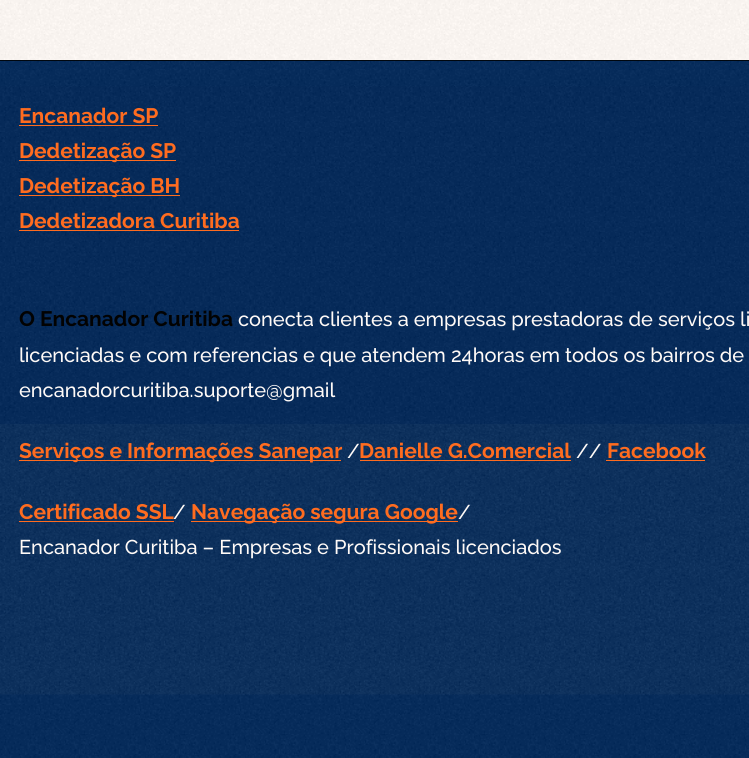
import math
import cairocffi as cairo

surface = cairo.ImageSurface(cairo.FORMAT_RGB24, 749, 758)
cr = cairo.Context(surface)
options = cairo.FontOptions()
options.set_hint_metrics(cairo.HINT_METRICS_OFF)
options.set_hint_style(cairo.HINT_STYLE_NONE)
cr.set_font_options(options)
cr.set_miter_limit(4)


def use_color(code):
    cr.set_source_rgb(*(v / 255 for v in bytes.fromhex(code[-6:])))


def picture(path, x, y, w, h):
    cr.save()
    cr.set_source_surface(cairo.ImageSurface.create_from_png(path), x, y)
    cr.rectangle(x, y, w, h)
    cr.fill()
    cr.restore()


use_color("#fffaf6")
cr.paint()
picture("img1.png", 0, 0, 749, 60)
use_color("#002758")
cr.rectangle(0, 61, 749, 697)
cr.fill()
picture("img2.png", 0, 59, 749, 699)
use_color("#00070f")
cr.rectangle(0, 60, 749, 1)
cr.fill()
use_color("#002657")
cr.rectangle(0, 86, 749, 338)
cr.fill()
picture("img3.png", 0, 86, 749, 609)
cr.select_font_face("Raleway", cairo.FONT_SLANT_NORMAL, cairo.FONT_WEIGHT_BOLD)
cr.set_font_size(21)
use_color("#ff6c1f")
cr.move_to(19, 123)
cr.show_text("Encanador SP")
cr.rectangle(19, 125, 139, 1)
cr.fill()
cr.rectangle(19, 160, 157, 1)
cr.fill()
cr.move_to(19, 158)
cr.show_text("Dedetização SP")
cr.rectangle(19, 195, 161, 1)
cr.fill()
cr.move_to(19, 193)
cr.show_text("Dedetização BH")
cr.move_to(19, 228)
cr.show_text("Dedetizadora Curitiba")
cr.rectangle(19, 230, 220, 1)
cr.fill()
use_color("#020202")
cr.move_to(19, 326)
cr.show_text("O Encanador Curitiba")
cr.select_font_face("Raleway Medium")
cr.set_font_size(20)
use_color("#fffaf7")
cr.move_to(238, 326)
cr.show_text("conecta clientes a empresas prestadoras de serviços li")
cr.move_to(19, 362)
cr.show_text("licenciadas e com referencias e que atendem 24horas em todos os bairros de")
cr.move_to(19, 397)
cr.show_text("encanadorcuritiba.suporte@gmail")
use_color("#ff6c1f")
cr.rectangle(19, 460, 322, 1)
cr.fill()
cr.select_font_face("Raleway", cairo.FONT_SLANT_NORMAL, cairo.FONT_WEIGHT_BOLD)
cr.set_font_size(21)
cr.move_to(19, 458)
cr.show_text("Serviços e Informações Sanepar")
cr.select_font_face("Raleway Medium")
cr.set_font_size(20)
use_color("#fffaf7")
cr.move_to(347, 458)
cr.show_text("/")
cr.select_font_face("Raleway", cairo.FONT_SLANT_NORMAL, cairo.FONT_WEIGHT_BOLD)
cr.set_font_size(21)
use_color("#ff6c1f")
cr.move_to(359, 458)
cr.show_text("Danielle G.Comercial")
cr.rectangle(360, 460, 211, 1)
cr.fill()
cr.select_font_face("Raleway Medium")
cr.set_font_size(20)
use_color("#fffaf7")
cr.move_to(576, 458)
cr.show_text("//")
cr.select_font_face("Raleway", cairo.FONT_SLANT_NORMAL, cairo.FONT_WEIGHT_BOLD)
cr.set_font_size(21)
use_color("#ff6c1f")
cr.move_to(607, 458)
cr.show_text("Facebook")
cr.rectangle(606, 460, 99, 1)
cr.fill()
cr.move_to(19, 519)
cr.show_text("Certificado SSL")
cr.rectangle(19, 521, 155, 1)
cr.fill()
cr.select_font_face("Raleway Medium")
cr.set_font_size(20)
use_color("#fffaf7")
cr.move_to(173, 519)
cr.show_text("/")
use_color("#ff6c1f")
cr.rectangle(191, 521, 267, 1)
cr.fill()
cr.select_font_face("Raleway", cairo.FONT_SLANT_NORMAL, cairo.FONT_WEIGHT_BOLD)
cr.set_font_size(21)
cr.move_to(191, 519)
cr.show_text("Navegação segura Google")
cr.select_font_face("Raleway Medium")
cr.set_font_size(20)
use_color("#fffaf7")
cr.move_to(458, 519)
cr.show_text("/")
cr.move_to(19, 554)
cr.show_text("Encanador Curitiba – Empresas e Profissionais licenciados")
surface.write_to_png("result.png")
